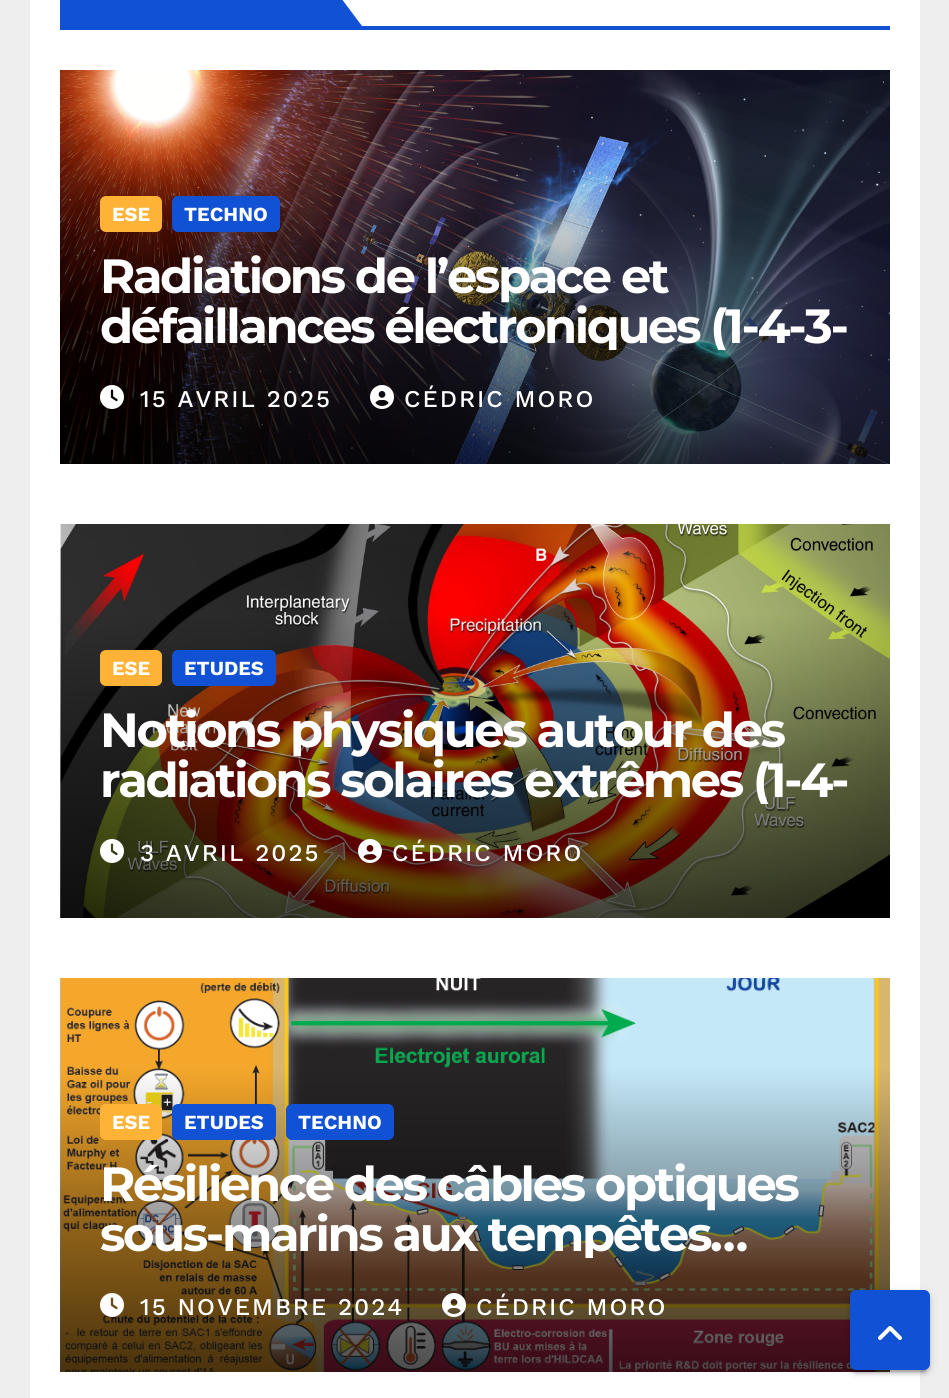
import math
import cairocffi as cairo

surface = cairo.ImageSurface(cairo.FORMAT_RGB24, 949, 1398)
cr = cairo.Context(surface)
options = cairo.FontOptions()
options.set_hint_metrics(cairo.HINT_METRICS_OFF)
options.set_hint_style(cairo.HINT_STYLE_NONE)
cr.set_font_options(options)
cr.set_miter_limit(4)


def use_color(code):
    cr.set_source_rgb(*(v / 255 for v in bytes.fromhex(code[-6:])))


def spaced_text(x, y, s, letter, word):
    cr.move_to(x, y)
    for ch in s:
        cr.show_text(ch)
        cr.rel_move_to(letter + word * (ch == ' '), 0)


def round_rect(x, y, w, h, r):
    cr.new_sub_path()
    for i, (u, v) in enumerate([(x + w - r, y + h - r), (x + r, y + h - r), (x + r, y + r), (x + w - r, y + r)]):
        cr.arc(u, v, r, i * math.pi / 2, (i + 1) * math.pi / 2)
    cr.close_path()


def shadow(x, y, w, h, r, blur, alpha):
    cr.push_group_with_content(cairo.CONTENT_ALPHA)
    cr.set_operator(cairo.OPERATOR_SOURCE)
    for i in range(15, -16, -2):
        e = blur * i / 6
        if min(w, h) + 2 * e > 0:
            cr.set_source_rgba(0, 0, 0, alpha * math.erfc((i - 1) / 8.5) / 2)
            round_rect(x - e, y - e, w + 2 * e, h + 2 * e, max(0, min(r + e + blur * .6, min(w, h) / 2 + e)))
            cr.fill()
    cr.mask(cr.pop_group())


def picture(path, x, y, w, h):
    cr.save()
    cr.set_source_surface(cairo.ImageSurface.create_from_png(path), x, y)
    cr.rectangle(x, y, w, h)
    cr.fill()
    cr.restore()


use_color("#eeeeee")
cr.paint()
use_color("#ffffff")
cr.rectangle(30, 0, 890, 1398)
cr.fill()
use_color("#1151d3")
cr.rectangle(60, 26, 830, 4)
cr.fill()
cr.rectangle(60, 0, 242, 26)
cr.fill()
cr.new_path()
cr.move_to(302, 26)
cr.line_to(302, -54)
cr.line_to(362, 26)
cr.close_path()
cr.fill()
picture("img1.png", 60, 70, 830, 394)
use_color("#feb236")
round_rect(100, 196, 62, 36, 6)
cr.fill()
cr.select_font_face("Work Sans", cairo.FONT_SLANT_NORMAL, cairo.FONT_WEIGHT_BOLD)
cr.set_font_size(20)
use_color("#ffffff")
cr.move_to(112, 221)
cr.show_text("ESE")
use_color("#1151d3")
round_rect(172, 196, 108, 36, 6)
cr.fill()
use_color("#ffffff")
cr.move_to(184, 221)
cr.show_text("TECHNO")
cr.select_font_face("Montserrat", cairo.FONT_SLANT_NORMAL, cairo.FONT_WEIGHT_BOLD)
cr.set_font_size(48)
spaced_text(100, 293, "Radiations de l’espace et", -2.4, 0)
cr.save()
cr.rectangle(100, 250, 750, 100)
cr.clip()
spaced_text(100, 343, "défaillances électroniques (1-4-3-", -2.4, 0)
cr.restore()
picture("img2.png", 100, 385, 24, 24)
cr.select_font_face("Work Sans Medium")
cr.set_font_size(24)
spaced_text(140, 407, "15 AVRIL 2025", 2, 0)
picture("img3.png", 370, 385, 24, 24)
spaced_text(404, 407, "CÉDRIC MORO", 2, 0)
picture("img4.png", 60, 524, 830, 394)
use_color("#feb236")
round_rect(100, 650, 62, 36, 6)
cr.fill()
cr.select_font_face("Work Sans", cairo.FONT_SLANT_NORMAL, cairo.FONT_WEIGHT_BOLD)
cr.set_font_size(20)
use_color("#ffffff")
cr.move_to(112, 675)
cr.show_text("ESE")
use_color("#1151d3")
round_rect(172, 650, 104, 36, 6)
cr.fill()
use_color("#ffffff")
cr.move_to(184, 675)
cr.show_text("ETUDES")
cr.select_font_face("Montserrat", cairo.FONT_SLANT_NORMAL, cairo.FONT_WEIGHT_BOLD)
cr.set_font_size(48)
spaced_text(100, 747, "Notions physiques autour des", -2.4, 0)
cr.save()
cr.rectangle(100, 704, 750, 100)
cr.clip()
spaced_text(100, 797, "radiations solaires extrêmes (1-4-", -2.4, 0)
cr.restore()
picture("img5.png", 100, 839, 24, 24)
cr.select_font_face("Work Sans Medium")
cr.set_font_size(24)
spaced_text(140, 861, "3 AVRIL 2025", 2, 0)
picture("img6.png", 358, 839, 24, 24)
spaced_text(392, 861, "CÉDRIC MORO", 2, 0)
picture("img7.png", 60, 978, 830, 394)
use_color("#feb236")
round_rect(100, 1104, 62, 36, 6)
cr.fill()
cr.select_font_face("Work Sans", cairo.FONT_SLANT_NORMAL, cairo.FONT_WEIGHT_BOLD)
cr.set_font_size(20)
use_color("#ffffff")
cr.move_to(112, 1129)
cr.show_text("ESE")
use_color("#1151d3")
round_rect(172, 1104, 104, 36, 6)
cr.fill()
use_color("#ffffff")
cr.move_to(184, 1129)
cr.show_text("ETUDES")
use_color("#1151d3")
round_rect(286, 1104, 108, 36, 6)
cr.fill()
use_color("#ffffff")
cr.move_to(298, 1129)
cr.show_text("TECHNO")
cr.select_font_face("Montserrat", cairo.FONT_SLANT_NORMAL, cairo.FONT_WEIGHT_BOLD)
cr.set_font_size(48)
spaced_text(100, 1201, "Résilience des câbles optiques", -2.4, 0)
cr.save()
cr.rectangle(100, 1158, 750, 100)
cr.clip()
spaced_text(100, 1251, "sous-marins aux tempêtes…", -2.4, 0)
cr.restore()
picture("img8.png", 100, 1293, 24, 24)
cr.select_font_face("Work Sans Medium")
cr.set_font_size(24)
spaced_text(140, 1315, "15 NOVEMBRE 2024", 2, 0)
picture("img9.png", 442, 1293, 24, 24)
spaced_text(476, 1315, "CÉDRIC MORO", 2, 0)
use_color("#000000")
shadow(850, 1292, 80, 80, 6, 5, 0.12)
shadow(854, 1300, 72, 72, 2, 1, 0.2)
shadow(850, 1294, 80, 80, 6, 2, 0.14)
use_color("#1151d3")
round_rect(852, 1292, 76, 76, 4)
cr.fill_preserve()
cr.set_line_width(4)
cr.stroke()
picture("img10.png", 878, 1326, 24, 14)
surface.write_to_png("result.png")
